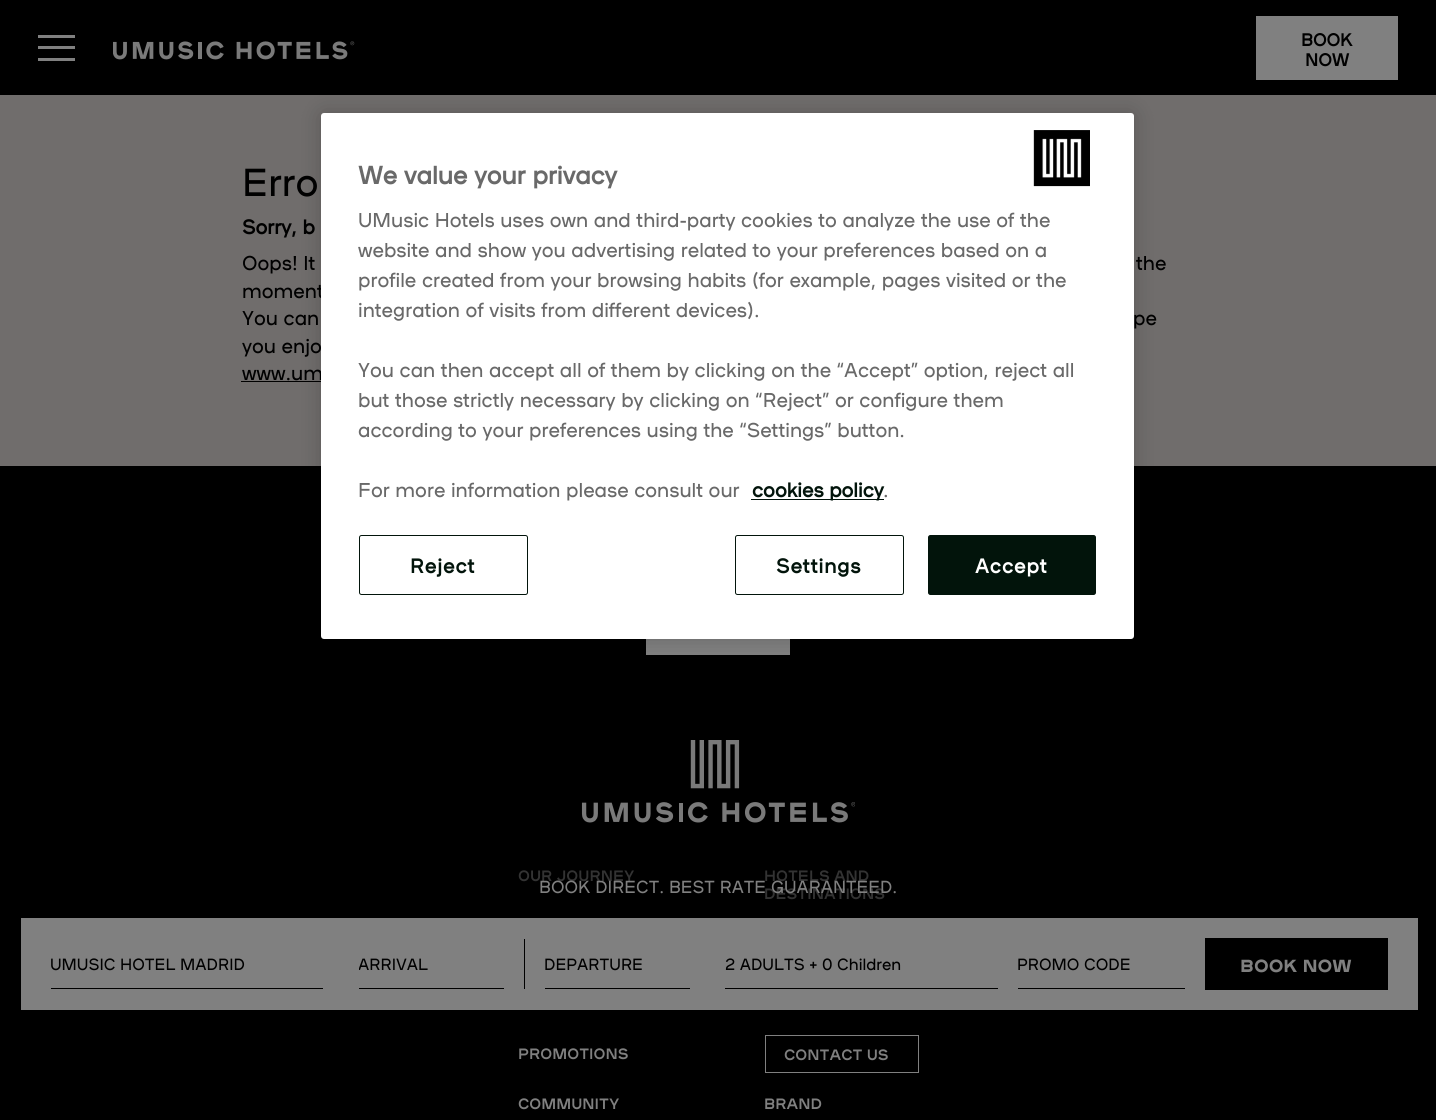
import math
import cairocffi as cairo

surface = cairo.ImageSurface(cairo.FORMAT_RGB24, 1436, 1120)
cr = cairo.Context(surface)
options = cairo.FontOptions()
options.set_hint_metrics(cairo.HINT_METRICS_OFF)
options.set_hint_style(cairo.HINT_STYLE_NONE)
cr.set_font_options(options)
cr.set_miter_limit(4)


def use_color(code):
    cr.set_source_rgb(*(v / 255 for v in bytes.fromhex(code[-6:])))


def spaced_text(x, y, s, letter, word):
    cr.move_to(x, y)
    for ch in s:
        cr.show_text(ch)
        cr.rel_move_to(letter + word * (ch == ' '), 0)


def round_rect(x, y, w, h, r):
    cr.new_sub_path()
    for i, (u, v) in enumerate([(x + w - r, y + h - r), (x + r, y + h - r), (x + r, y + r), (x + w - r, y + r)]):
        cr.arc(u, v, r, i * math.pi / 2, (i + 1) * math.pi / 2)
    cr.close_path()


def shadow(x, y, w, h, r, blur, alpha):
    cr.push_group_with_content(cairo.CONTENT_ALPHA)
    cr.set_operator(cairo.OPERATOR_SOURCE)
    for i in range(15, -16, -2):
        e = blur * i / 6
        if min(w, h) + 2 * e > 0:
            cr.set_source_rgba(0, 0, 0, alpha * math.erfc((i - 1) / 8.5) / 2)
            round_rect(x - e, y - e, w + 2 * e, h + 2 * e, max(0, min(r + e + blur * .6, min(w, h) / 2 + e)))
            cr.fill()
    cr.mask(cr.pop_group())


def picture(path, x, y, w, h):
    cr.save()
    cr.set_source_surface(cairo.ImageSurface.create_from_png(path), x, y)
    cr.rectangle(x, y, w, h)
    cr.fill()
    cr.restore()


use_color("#706d6c")
cr.paint()
use_color("#000000")
cr.rectangle(0, 0, 1436, 95)
cr.fill()
use_color("#808080")
cr.rectangle(38, 46, 37, 3)
cr.fill()
cr.rectangle(38, 35, 37, 3)
cr.fill()
cr.rectangle(38, 58, 37, 3)
cr.fill()
picture("img1.png", 113, 41, 242, 19)
cr.rectangle(1256, 16, 142, 64)
cr.fill()
cr.select_font_face("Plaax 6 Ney", cairo.FONT_SLANT_NORMAL, cairo.FONT_WEIGHT_BOLD)
cr.set_font_size(17.5)
use_color("#000000")
cr.move_to(1301, 46)
cr.show_text("BOOK")
cr.move_to(1305, 66)
cr.show_text("NOW")
cr.select_font_face("Plaax 6 Ney")
cr.set_font_size(39)
cr.move_to(242, 196)
cr.show_text("Erro")
cr.select_font_face("Plaax 6 Ney", cairo.FONT_SLANT_NORMAL, cairo.FONT_WEIGHT_BOLD)
cr.set_font_size(20)
cr.move_to(242, 234)
cr.show_text("Sorry, b")
cr.select_font_face("Plaax 6 Ney")
cr.move_to(242, 270)
cr.show_text("Oops! It")
cr.move_to(1136, 270)
cr.show_text("the")
cr.move_to(242, 298)
cr.show_text("moment")
cr.move_to(242, 325)
cr.show_text("You can")
cr.move_to(1133, 325)
cr.show_text("pe")
cr.move_to(242, 353)
cr.show_text("you enjo")
cr.move_to(242, 380)
cr.show_text("www.um")
cr.rectangle(241, 381, 80, 1)
cr.fill()
cr.rectangle(0, 466, 1436, 654)
cr.fill()
use_color("#808080")
cr.rectangle(646, 639, 144, 16)
cr.fill()
picture("img2.png", 581, 740, 274, 83)
cr.select_font_face("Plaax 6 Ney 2", cairo.FONT_SLANT_NORMAL, cairo.FONT_WEIGHT_BOLD)
cr.set_font_size(15)
use_color("#333333")
cr.move_to(518, 881)
cr.show_text("OUR JOURNEY")
cr.move_to(764, 881)
cr.show_text("HOTELS AND")
cr.move_to(764, 899)
cr.show_text("DESTINATIONS")
use_color("#808080")
cr.move_to(518, 1059)
cr.show_text("PROMOTIONS")
cr.rectangle(765.5, 1035.5, 153, 37)
cr.set_line_width(1)
cr.stroke()
cr.move_to(784, 1060)
cr.show_text("CONTACT US")
cr.move_to(518, 1109)
cr.show_text("COMMUNITY")
cr.move_to(764, 1109)
cr.show_text("BRAND")
cr.select_font_face("Plaax 6 Ney")
cr.set_font_size(17.5)
cr.move_to(539, 893)
cr.show_text("BOOK DIRECT. BEST RATE GUARANTEED.")
cr.rectangle(21, 918, 1397, 92)
cr.fill()
use_color("#000000")
cr.rectangle(51, 988, 272, 1)
cr.fill()
cr.set_font_size(16.25)
cr.move_to(50, 970)
cr.show_text("UMUSIC HOTEL MADRID")
cr.rectangle(359, 988, 145, 1)
cr.fill()
cr.save()
cr.rectangle(359, 951, 145, 24)
cr.clip()
cr.move_to(358, 970)
cr.show_text("ARRIVAL")
cr.restore()
cr.rectangle(524, 939, 1, 50)
cr.fill()
cr.rectangle(545, 988, 145, 1)
cr.fill()
cr.move_to(544, 970)
cr.show_text("DEPARTURE")
cr.rectangle(725, 988, 273, 1)
cr.fill()
cr.move_to(725, 970)
cr.show_text("2 ADULTS + 0 Children")
cr.rectangle(1018, 988, 167, 1)
cr.fill()
cr.move_to(1017, 970)
cr.show_text("PROMO CODE")
cr.rectangle(1205, 938, 183, 52)
cr.fill()
cr.select_font_face("Plaax 6 Ney Black")
cr.set_font_size(17.5)
use_color("#808080")
cr.move_to(1240, 972)
cr.show_text("BOOK NOW")
use_color("#000000")
shadow(321, 113, 813, 526, 3, 11, 0.2)
use_color("#ffffff")
round_rect(321, 113, 813, 526, 3)
cr.fill()
cr.select_font_face("Plaax 6 Ney", cairo.FONT_SLANT_NORMAL, cairo.FONT_WEIGHT_BOLD)
cr.set_font_size(25)
use_color("#696969")
cr.move_to(358, 184)
cr.show_text("We value your privacy")
picture("img3.png", 1033, 130, 57, 57)
cr.select_font_face("Plaax 6 Ney")
cr.set_font_size(20)
cr.move_to(358, 227)
cr.show_text("UMusic Hotels uses own and third-party cookies to analyze the use of the")
cr.move_to(358, 257)
cr.show_text("website and show you advertising related to your preferences based on a")
cr.move_to(358, 287)
cr.show_text("profile created from your browsing habits (for example, pages visited or the")
cr.move_to(358, 317)
cr.show_text("integration of visits from different devices).")
cr.move_to(358, 377)
cr.show_text("You can then accept all of them by clicking on the “Accept” option, reject all")
cr.move_to(358, 407)
cr.show_text("but those strictly necessary by clicking on “Reject” or configure them")
cr.move_to(358, 437)
cr.show_text("according to your preferences using the “Settings” button.")
cr.move_to(358, 497)
cr.show_text("For more information please consult our")
use_color("#02140b")
cr.rectangle(751, 499, 133, 1)
cr.fill()
cr.select_font_face("Plaax 6 Ney", cairo.FONT_SLANT_NORMAL, cairo.FONT_WEIGHT_BOLD)
cr.move_to(752, 497)
cr.show_text("cookies policy")
cr.select_font_face("Plaax 6 Ney")
use_color("#696969")
cr.move_to(883, 497)
cr.show_text(".")
round_rect(359.5, 535.5, 168, 59, 2)
use_color("#02140b")
cr.stroke()
cr.select_font_face("Plaax 6 Ney", cairo.FONT_SLANT_NORMAL, cairo.FONT_WEIGHT_BOLD)
spaced_text(410, 573, "Reject", 1, 0)
round_rect(928.5, 535.5, 167, 59, 2)
cr.fill_preserve()
cr.stroke()
use_color("#ffffff")
spaced_text(975, 573, "Accept", 1, 0)
round_rect(735.5, 535.5, 168, 59, 2)
use_color("#02140b")
cr.stroke()
spaced_text(776, 573, "Settings", 1, 0)
surface.write_to_png("result.png")
